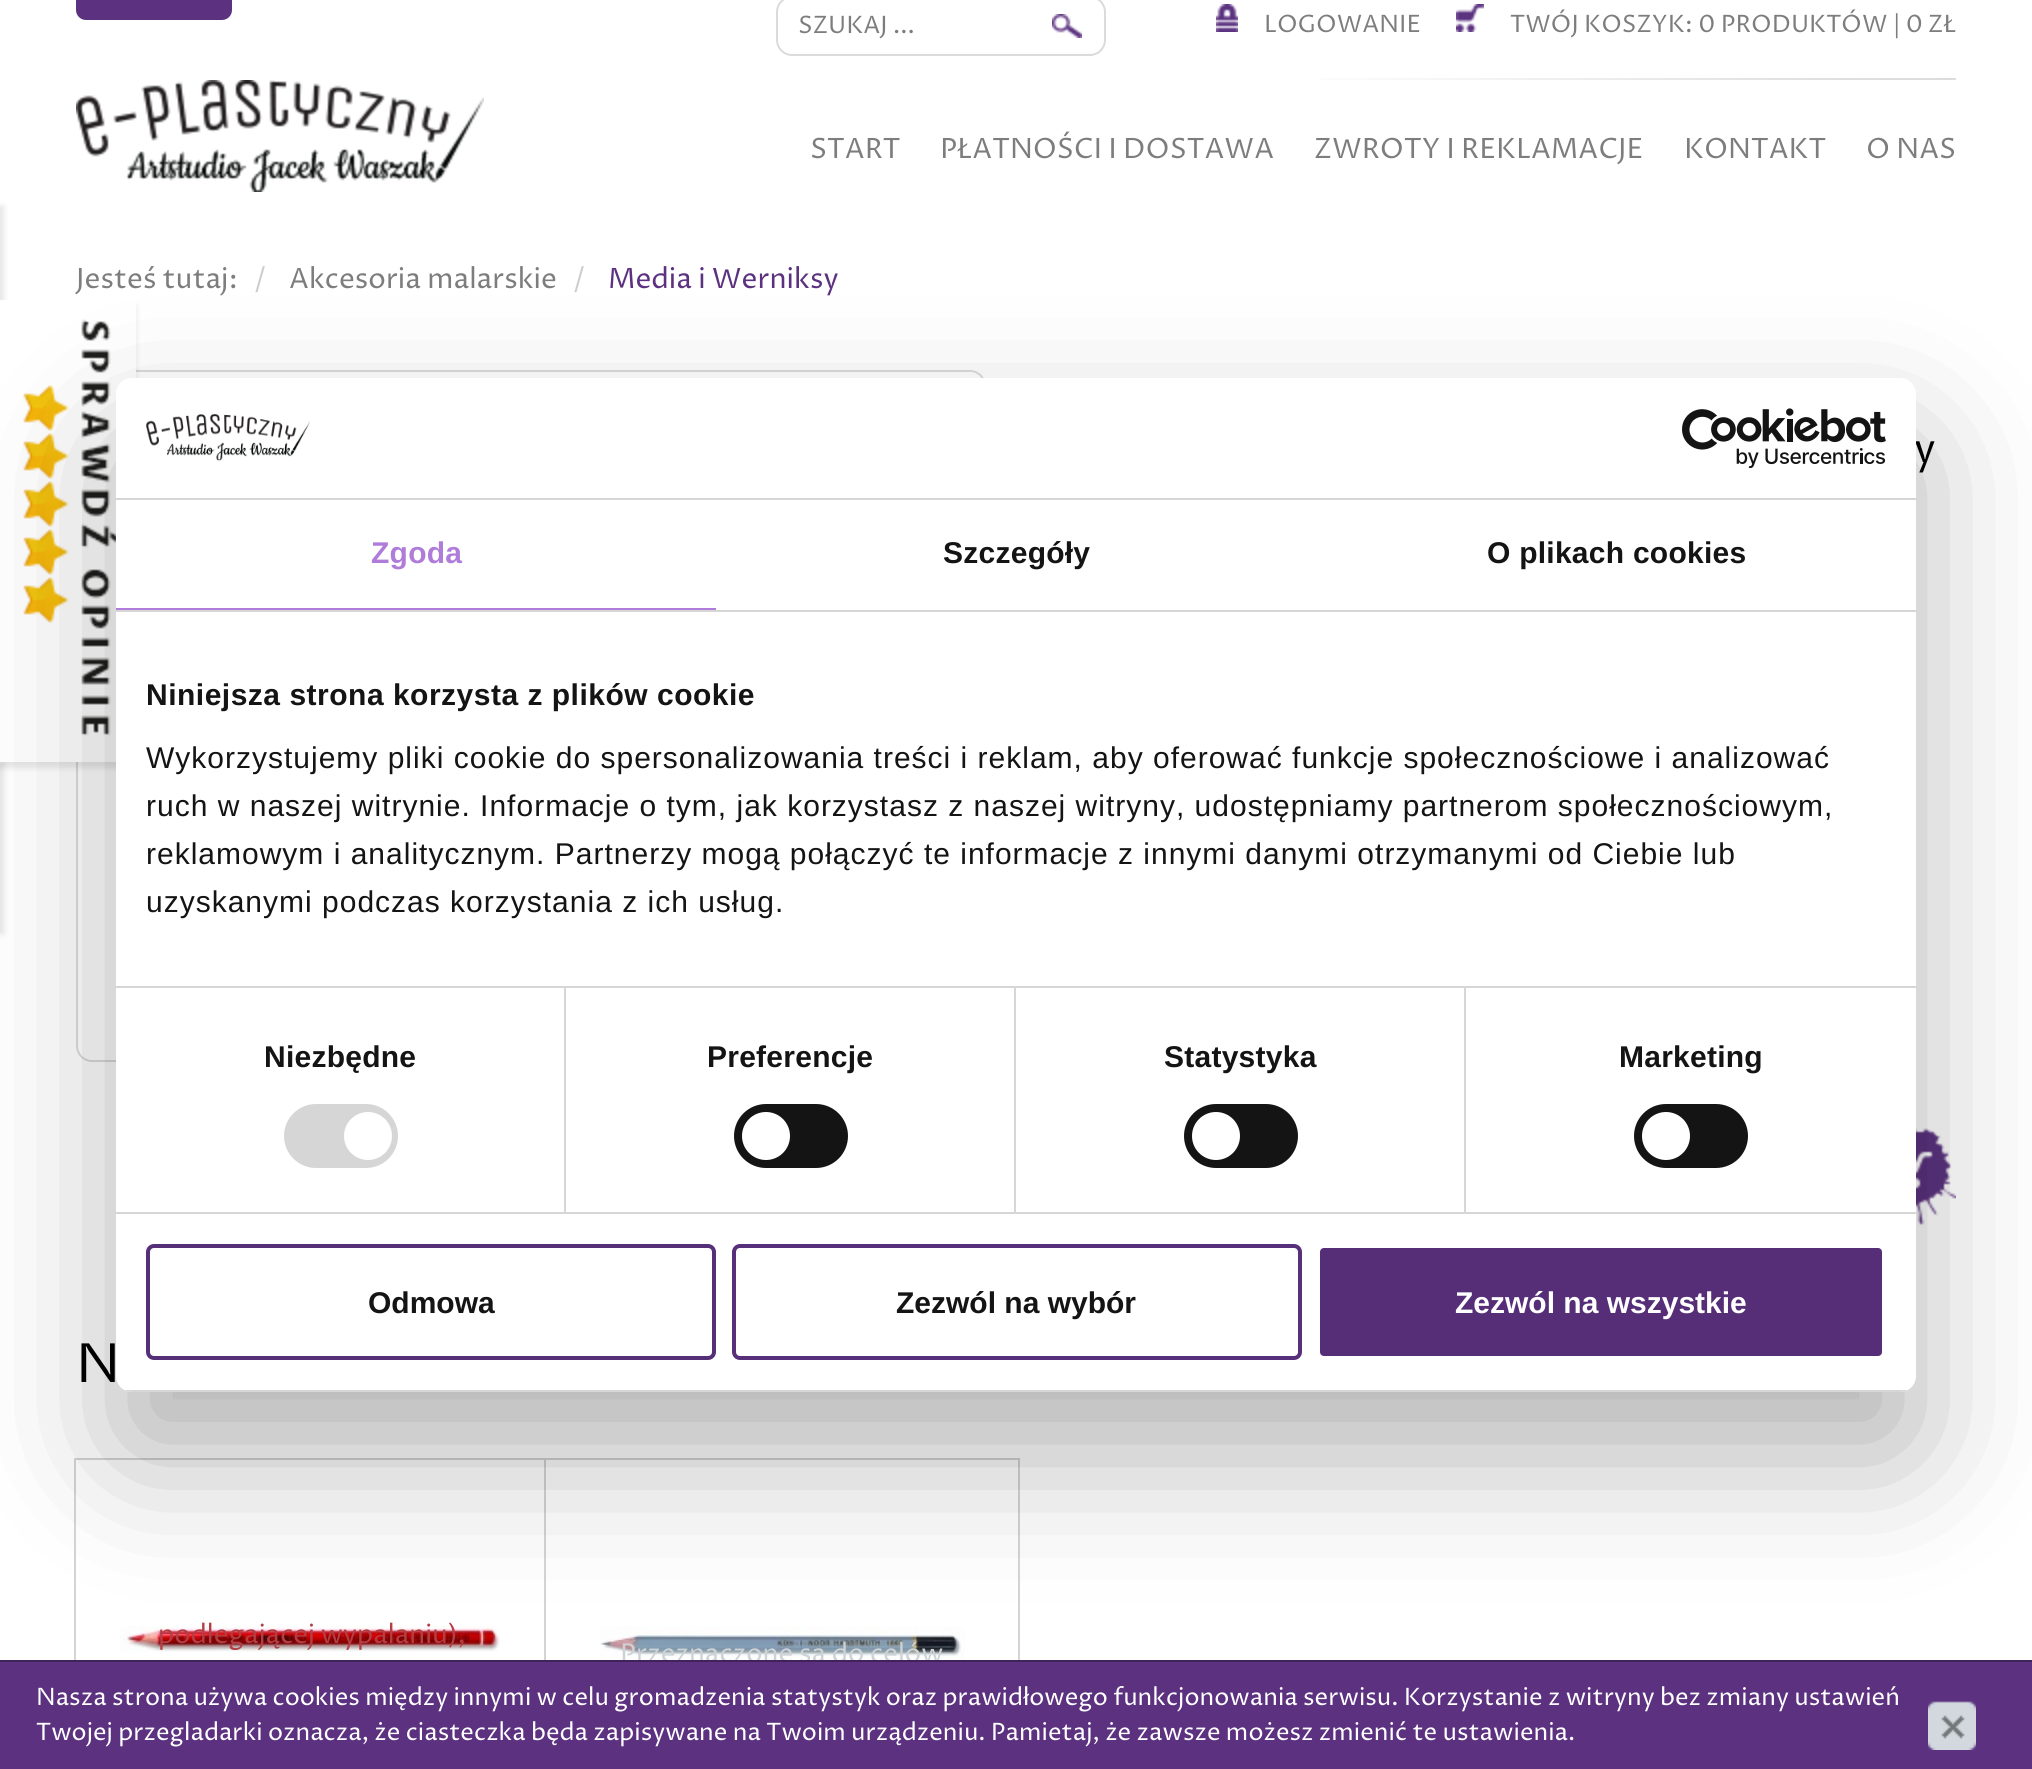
import math
import cairocffi as cairo

surface = cairo.ImageSurface(cairo.FORMAT_RGB24, 2032, 1769)
cr = cairo.Context(surface)
options = cairo.FontOptions()
options.set_hint_metrics(cairo.HINT_METRICS_OFF)
options.set_hint_style(cairo.HINT_STYLE_NONE)
cr.set_font_options(options)
cr.set_miter_limit(4)


def use_color(code):
    cr.set_source_rgb(*(v / 255 for v in bytes.fromhex(code[-6:])))


def spaced_text(x, y, s, letter, word):
    cr.move_to(x, y)
    for ch in s:
        cr.show_text(ch)
        cr.rel_move_to(letter + word * (ch == ' '), 0)


def round_rect(x, y, w, h, r):
    cr.new_sub_path()
    for i, (u, v) in enumerate([(x + w - r, y + h - r), (x + r, y + h - r), (x + r, y + r), (x + w - r, y + r)]):
        cr.arc(u, v, r, i * math.pi / 2, (i + 1) * math.pi / 2)
    cr.close_path()


def shadow(x, y, w, h, r, blur, alpha):
    cr.push_group_with_content(cairo.CONTENT_ALPHA)
    cr.set_operator(cairo.OPERATOR_SOURCE)
    for i in range(15, -16, -2):
        e = blur * i / 6
        if min(w, h) + 2 * e > 0:
            cr.set_source_rgba(0, 0, 0, alpha * math.erfc((i - 1) / 8.5) / 2)
            round_rect(x - e, y - e, w + 2 * e, h + 2 * e, max(0, min(r + e + blur * .6, min(w, h) / 2 + e)))
            cr.fill()
    cr.mask(cr.pop_group())


def picture(path, x, y, w, h):
    cr.save()
    cr.set_source_surface(cairo.ImageSurface.create_from_png(path), x, y)
    cr.rectangle(x, y, w, h)
    cr.fill()
    cr.restore()


use_color("#ffffff")
cr.paint()
picture("img1.png", 1321, 78, 635, 2)
use_color("#5b3180")
cr.new_path()
cr.move_to(76, -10)
cr.line_to(232, -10)
cr.line_to(232, 10)
cr.curve_to(232, 15.5, 227.5, 20, 222, 20)
cr.line_to(86, 20)
cr.curve_to(80.5, 20, 76, 15.5, 76, 10)
cr.close_path()
cr.fill()
round_rect(777, -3, 328, 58, 15)
use_color("#dbdbdb")
cr.stroke()
cr.select_font_face("Proza Libre")
cr.set_font_size(24)
use_color("#7d7d7d")
cr.move_to(798, 33)
cr.show_text("SZUKAJ ...")
picture("img2.png", 1052, 14, 30, 24)
picture("img3.png", 1216, 4, 22, 28)
cr.move_to(1264, 32)
cr.show_text("LOGOWANIE")
picture("img4.png", 1456, 4, 28, 28)
cr.move_to(1510, 32)
cr.show_text("TWÓJ KOSZYK: 0 PRODUKTÓW | 0 ZŁ")
picture("img5.png", 76, 80, 408, 112)
cr.set_font_size(28)
cr.move_to(810, 158)
cr.show_text("START")
cr.move_to(940, 158)
cr.show_text("PŁATNOŚCI I DOSTAWA")
cr.move_to(1314, 158)
cr.show_text("ZWROTY I REKLAMACJE")
cr.move_to(1684, 158)
cr.show_text("KONTAKT")
cr.move_to(1866, 158)
cr.show_text("O NAS")
use_color("#000000")
shadow(-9, 206, 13, 728, 0, 3, 0.1)
round_rect(77, 371, 908, 690, 15)
use_color("#dbdbdb")
cr.stroke()
use_color("#000000")
shadow(0, 306, 136, 462, 0, 3, 0.1)
use_color("#ffffff")
cr.rectangle(0, 300, 136, 462)
cr.fill()
picture("img6.png", 23, 319, 96, 417)
use_color("#7d7d7d")
cr.move_to(76, 288)
cr.show_text("Jesteś tutaj:")
use_color("#cccccc")
cr.move_to(254, 288)
cr.show_text("/")
use_color("#7d7d7d")
cr.move_to(289, 288)
cr.show_text("Akcesoria malarskie")
use_color("#cccccc")
cr.move_to(573, 288)
cr.show_text("/")
use_color("#5b3180")
cr.move_to(608, 288)
cr.show_text("Media i Werniksy")
cr.set_font_size(40)
use_color("#000000")
cr.move_to(1914, 462)
cr.show_text("y")
picture("img7.png", 1916, 1128, 40, 97)
cr.set_font_size(54)
cr.move_to(76, 1382)
cr.show_text("N")
cr.rectangle(75, 1459, 474, 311)
use_color("#d4d4d4")
cr.stroke()
picture("img8.png", 120, 1626, 380, 26)
cr.set_font_size(26)
use_color("#b33f44")
cr.move_to(158, 1643)
cr.show_text("podlegającej wypalaniu),")
use_color("#ffffff")
cr.rectangle(548, 1460, 2, 200)
cr.fill()
cr.rectangle(545, 1459, 474, 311)
use_color("#d4d4d4")
cr.stroke()
picture("img9.png", 600, 1626, 365, 34)
use_color("#ccd2d6")
cr.move_to(620, 1662)
cr.show_text("Przeznaczone są do celów")
use_color("#41235b")
cr.rectangle(0, 1660, 2032, 2)
cr.fill()
use_color("#000000")
shadow(116, 442, 1800, 1014, 16, 68, 0.3)
use_color("#ffffff")
round_rect(116, 378, 1800, 1014, 16)
cr.fill()
use_color("#d6d6d6")
cr.rectangle(116, 498, 1800, 2)
cr.fill()
picture("img10.png", 146, 414, 164, 47)
picture("img11.png", 1682, 408, 204, 60)
cr.rectangle(116, 610, 1800, 2)
cr.fill()
use_color("#af7dd9")
cr.rectangle(116, 608, 600, 2)
cr.fill()
cr.select_font_face("Liberation Sans", cairo.FONT_SLANT_NORMAL, cairo.FONT_WEIGHT_BOLD)
cr.set_font_size(30)
spaced_text(371, 563, "Zgoda", 0.25, 0)
use_color("#141414")
spaced_text(943, 563, "Szczegóły", 0.25, 0)
spaced_text(1487, 563, "O plikach cookies", 0.25, 0)
use_color("#d6d6d6")
cr.rectangle(116, 986, 1800, 2)
cr.fill()
use_color("#141414")
spaced_text(146, 705, "Niniejsza strona korzysta z plików cookie", 0.5, 0)
cr.select_font_face("Liberation Sans")
spaced_text(146, 768, "Wykorzystujemy pliki cookie do spersonalizowania treści i reklam, aby oferować funkcje społecznościowe i analizować", 1, 0)
spaced_text(146, 816, "ruch w naszej witrynie. Informacje o tym, jak korzystasz z naszej witryny, udostępniamy partnerom społecznościowym,", 1, 0)
spaced_text(146, 864, "reklamowym i analitycznym. Partnerzy mogą połączyć te informacje z innymi danymi otrzymanymi od Ciebie lub", 1, 0)
spaced_text(146, 912, "uzyskanymi podczas korzystania z ich usług.", 1, 0)
use_color("#d6d6d6")
cr.rectangle(116, 1212, 1800, 2)
cr.fill()
cr.rectangle(564, 988, 2, 224)
cr.fill()
cr.select_font_face("Liberation Sans", cairo.FONT_SLANT_NORMAL, cairo.FONT_WEIGHT_BOLD)
use_color("#141414")
spaced_text(264, 1067, "Niezbędne", 0.25, 0)
use_color("#d6d6d6")
round_rect(284, 1104, 114, 64, 32)
cr.fill()
use_color("#ffffff")
cr.arc(368, 1136, 24, 0, 2 * math.pi)
cr.fill()
use_color("#d6d6d6")
cr.rectangle(1014, 988, 2, 224)
cr.fill()
use_color("#141414")
spaced_text(707, 1067, "Preferencje", 0.25, 0)
round_rect(734, 1104, 114, 64, 32)
cr.fill()
use_color("#ffffff")
cr.arc(766, 1136, 24, 0, 2 * math.pi)
cr.fill()
use_color("#d6d6d6")
cr.rectangle(1464, 988, 2, 224)
cr.fill()
use_color("#141414")
spaced_text(1164, 1067, "Statystyka", 0.25, 0)
round_rect(1184, 1104, 114, 64, 32)
cr.fill()
use_color("#ffffff")
cr.arc(1216, 1136, 24, 0, 2 * math.pi)
cr.fill()
use_color("#141414")
spaced_text(1619, 1067, "Marketing", 0.25, 0)
round_rect(1634, 1104, 114, 64, 32)
cr.fill()
use_color("#ffffff")
cr.arc(1666, 1136, 24, 0, 2 * math.pi)
cr.fill()
cr.save()
round_rect(116, 378, 1800, 1014, 16)
cr.clip()
use_color("#d6d6d6")
cr.rectangle(116, 1390, 1800, 2)
cr.fill()
cr.restore()
round_rect(148, 1246, 566, 112, 6)
use_color("#562f79")
cr.set_line_width(4)
cr.stroke()
use_color("#141414")
cr.move_to(368, 1313)
cr.show_text("Odmowa")
round_rect(734, 1246, 566, 112, 6)
use_color("#572f7a")
cr.stroke()
use_color("#141414")
cr.move_to(896, 1313)
cr.show_text("Zezwól na wybór")
use_color("#552e77")
round_rect(1318, 1246, 566, 112, 6)
cr.fill_preserve()
use_color("#ffffff")
cr.stroke()
cr.move_to(1455, 1313)
cr.show_text("Zezwól na wszystkie")
use_color("#5b3180")
cr.rectangle(0, 1662, 2032, 107)
cr.fill()
cr.select_font_face("Proza Libre")
cr.set_font_size(24)
use_color("#ffffff")
cr.move_to(36, 1705)
cr.show_text("Nasza strona używa cookies między innymi w celu gromadzenia statystyk oraz prawidłowego funkcjonowania serwisu. Korzystanie z witryny bez zmiany ustawień")
picture("img12.png", 1928, 1701, 48, 49)
cr.move_to(36, 1740)
cr.show_text("Twojej przegladarki oznacza, że ciasteczka będa zapisywane na Twoim urządzeniu. Pamietaj, że zawsze możesz zmienić te ustawienia.")
surface.write_to_png("result.png")
